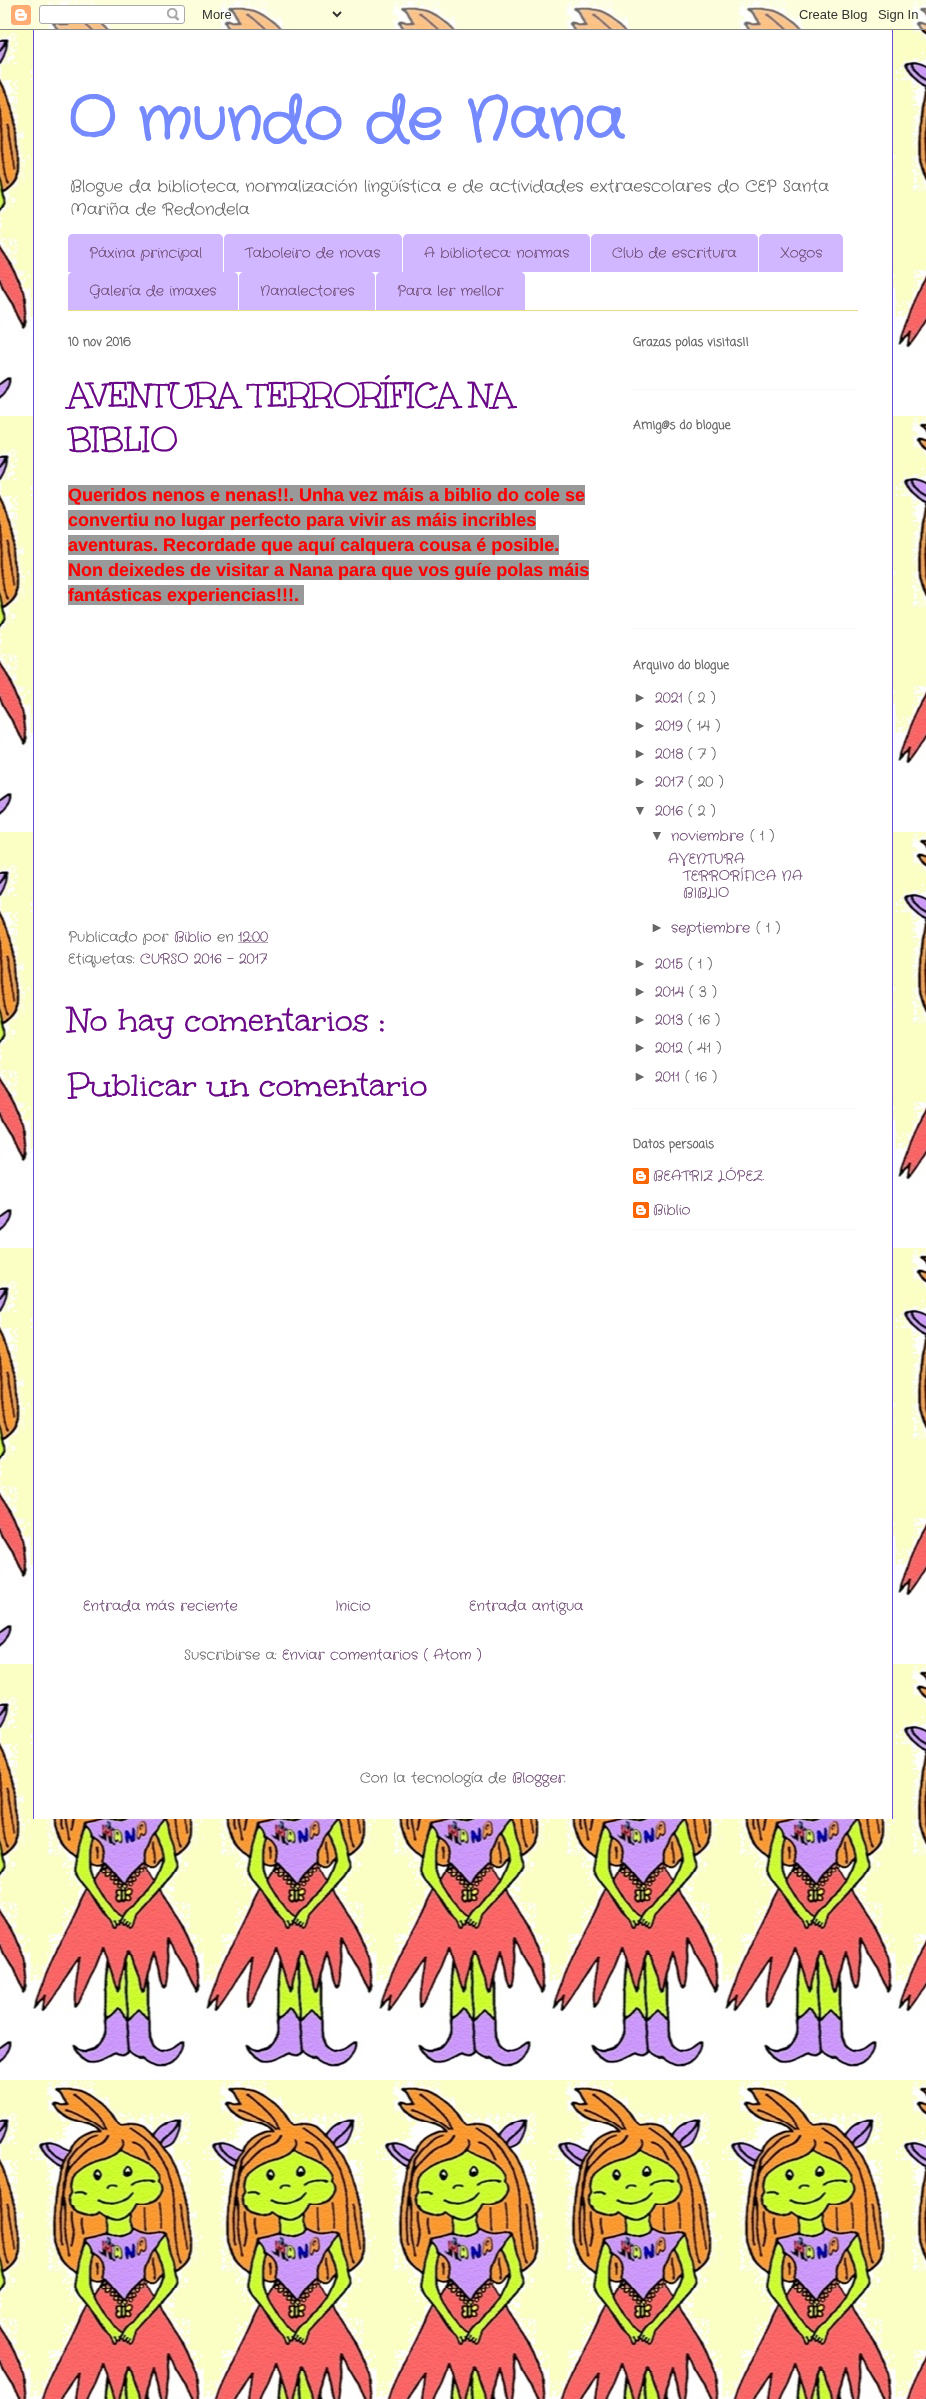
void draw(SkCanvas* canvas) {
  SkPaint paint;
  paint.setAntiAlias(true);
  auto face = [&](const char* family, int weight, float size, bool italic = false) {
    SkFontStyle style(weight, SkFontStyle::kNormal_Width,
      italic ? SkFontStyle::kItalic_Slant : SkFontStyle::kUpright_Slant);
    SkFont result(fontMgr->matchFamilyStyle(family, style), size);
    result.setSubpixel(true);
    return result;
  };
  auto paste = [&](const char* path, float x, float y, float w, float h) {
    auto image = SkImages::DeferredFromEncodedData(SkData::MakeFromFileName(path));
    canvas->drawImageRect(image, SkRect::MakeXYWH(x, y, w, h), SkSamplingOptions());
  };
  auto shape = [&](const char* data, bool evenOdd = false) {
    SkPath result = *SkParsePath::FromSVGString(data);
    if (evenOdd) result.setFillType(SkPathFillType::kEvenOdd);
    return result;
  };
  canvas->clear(0xffffffff);
  paste("img/1.png", 0, 0, 926, 2399);
  paste("img/2.png", 0, 0, 926, 30);
  {
    const struct { float x, y, w, h; SkColor color; } items[] = {
      {34, 30, 858, 1789, 0xffffffff},
      {892, 30, 1, 1789, 0xff694cd8},
      {33, 30, 1, 1789, 0xff694cd8},
      {68, 310, 790, 1, 0xffeddc83},
    };
    for (auto [x, y, w, h, color] : items) {
      paint.setColor(color);
      canvas->drawRect(SkRect::MakeXYWH(x, y, w, h), paint);
    }
  }
  paint.setColor(0xffd1b7ff);
  canvas->drawPath(shape("M73 234H218C221 234 223 236 223 239V272H68V239C68 236 70 234 73 234Z"), paint);
  canvas->drawPath(shape("M229 234H397C400 234 402 236 402 239V272H224V239C224 236 226 234 229 234Z"), paint);
  canvas->drawPath(shape("M408 234H585C588 234 590 236 590 239V272H403V239C403 236 405 234 408 234Z"), paint);
  canvas->drawPath(shape("M596 234H753C756 234 758 236 758 239V272H591V239C591 236 593 234 596 234Z"), paint);
  canvas->drawPath(shape("M764 234H838C841 234 843 236 843 239V272H759V239C759 236 761 234 764 234Z"), paint);
  canvas->drawPath(shape("M73 272H233C236 272 238 274 238 277V310H68V277C68 274 70 272 73 272Z"), paint);
  canvas->drawPath(shape("M244 272H370C373 272 375 274 375 277V310H239V277C239 274 241 272 244 272Z"), paint);
  canvas->drawPath(shape("M381 272H520C523 272 525 274 525 277V310H376V277C376 274 378 272 381 272Z"), paint);
  {
    const struct { float x, y, w, h; SkColor color; } items[] = {
      {68, 485, 517, 20, 0xff999999},
      {68, 510, 468, 20, 0xff999999},
      {68, 535, 491, 20, 0xff999999},
      {68, 560, 521, 20, 0xff999999},
      {68, 585, 236, 20, 0xff999999},
    };
    for (auto [x, y, w, h, color] : items) {
      paint.setColor(color);
      canvas->drawRect(SkRect::MakeXYWH(x, y, w, h), paint);
    }
  }
  paint.setStroke(true);
  paint.setStrokeWidth(1);
  paint.setColor(0xff6e4973);
  paint.setPathEffect(SkDashPathEffect::Make({{1, 1}}, 0));
  canvas->drawPath(shape("M238.5 942.5H268.5"), paint);
  paint.setPathEffect(nullptr);
  paint.setStroke(false);
  {
    const struct { float x, y, w, h; SkColor color; } items[] = {
      {633, 389, 225, 1, 0xfff9f9f9},
      {633, 628, 225, 1, 0xfff9f9f9},
      {633, 1108, 225, 1, 0xfff9f9f9},
      {633, 1229, 225, 1, 0xfff9f9f9},
    };
    for (auto [x, y, w, h, color] : items) {
      paint.setColor(color);
      canvas->drawRect(SkRect::MakeXYWH(x, y, w, h), paint);
    }
  }
  paste("img/3.png", 633, 1168, 16, 16);
  paste("img/3.png", 633, 1202, 16, 16);
  auto f0 = face("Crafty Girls", 700, 60);
  paint.setColor(0xff758aff);
  canvas->drawString("O mundo de Nana", 68, 138, f0, paint);
  auto f1 = face("Crafty Girls", 400, 16.1f);
  paint.setColor(0xff666666);
  canvas->drawString("Blogue da biblioteca, normalización lingüística e de actividades extraescolares do CEP Santa", 70, 191, f1, paint);
  canvas->drawString("Mariña de Redondela", 70, 214, f1, paint);
  auto f2 = face("Crafty Girls", 400, 14);
  paint.setColor(0xff6e4973);
  {
    const struct { const char* s; float x, y; } items[] = {
      {"Páxina principal", 89, 257},
      {"Taboleiro de novas", 245, 257},
      {"A biblioteca: normas", 424, 257},
      {"Club de escritura", 612, 257},
      {"Xogos", 780, 257},
      {"Galería de imaxes", 89, 295},
      {"Nanalectores", 260, 295},
      {"Para ler mellor", 397, 295},
    };
    for (auto [s, x, y] : items) {
      canvas->drawString(s, x, y, f2, paint);
    }
  }
  auto f3 = face("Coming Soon", 700, 12);
  paint.setColor(0xff666666);
  canvas->drawString("10 nov 2016", 68, 346, f3, paint);
  auto f4 = face("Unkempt", 400, 36);
  paint.setColor(0xff6a0888);
  canvas->drawString("AVENTURA TERRORÍFICA NA", 68, 408, f4, paint);
  canvas->drawString("BIBLIO", 68, 452, f4, paint);
  auto f5 = face("Liberation Sans", 700, 18);
  paint.setColor(0xffff0000);
  {
    const struct { const char* s; float x, y; } items[] = {
      {"Queridos nenos e nenas!!. Unha vez máis a biblio do cole se", 68, 501},
      {"convertiu no lugar perfecto para vivir as máis incribles", 68, 526},
      {"aventuras. Recordade que aquí calquera cousa é posible.", 68, 551},
      {"Non deixedes de visitar a Nana para que vos guíe polas máis", 68, 576},
      {"fantásticas experiencias!!!.", 68, 601},
    };
    for (auto [s, x, y] : items) {
      canvas->drawString(s, x, y, f5, paint);
    }
  }
  paint.setColor(0xff666666);
  canvas->drawString("Publicado por", 68, 941, f2, paint);
  paint.setColor(0xff6e4973);
  canvas->drawString("Biblio", 174, 941, f2, paint);
  paint.setColor(0xff666666);
  canvas->drawString("en", 217, 941, f2, paint);
  paint.setColor(0xff6e4973);
  canvas->drawString("12:00", 238, 941, f2, paint);
  paint.setColor(0xff666666);
  canvas->drawString("Etiquetas:", 68, 963, f2, paint);
  paint.setColor(0xff6e4973);
  canvas->drawString("CURSO 2016 - 2017", 140, 963, f2, paint);
  paint.setColor(0xff6a0888);
  canvas->drawString("No hay comentarios :", 68, 1033, f4, paint);
  canvas->drawString("Publicar un comentario", 68, 1098, f4, paint);
  paint.setColor(0xff6e4973);
  {
    const struct { const char* s; float x, y; } items[] = {
      {"Entrada más reciente", 83, 1610},
      {"Inicio", 335, 1610},
      {"Entrada antigua", 469, 1610},
    };
    for (auto [s, x, y] : items) {
      canvas->drawString(s, x, y, f2, paint);
    }
  }
  paint.setColor(0xff666666);
  canvas->drawString("Suscribirse a:", 184, 1659, f2, paint);
  paint.setColor(0xff6e4973);
  canvas->drawString("Enviar comentarios ( Atom )", 282, 1659, f2, paint);
  paint.setColor(0xff666666);
  {
    const struct { const char* s; float x, y; } items[] = {
      {"Grazas polas visitas!!", 633, 346},
      {"Amig@s do blogue", 633, 429},
      {"Arquivo do blogue", 633, 669},
    };
    for (auto [s, x, y] : items) {
      canvas->drawString(s, x, y, f3, paint);
    }
  }
  auto f6 = face("Liberation Sans", 400, 14);
  canvas->drawString("►", 633, 702, f6, paint);
  paint.setColor(0xff6e4973);
  canvas->drawString("2021", 655, 702, f2, paint);
  paint.setColor(0xff666666);
  canvas->drawString("( 2 )", 688, 702, f2, paint);
  canvas->drawString("►", 633, 730, f6, paint);
  paint.setColor(0xff6e4973);
  canvas->drawString("2019", 655, 730, f2, paint);
  paint.setColor(0xff666666);
  canvas->drawString("( 14 )", 687, 730, f2, paint);
  canvas->drawString("►", 633, 758, f6, paint);
  paint.setColor(0xff6e4973);
  canvas->drawString("2018", 655, 758, f2, paint);
  paint.setColor(0xff666666);
  canvas->drawString("( 7 )", 688, 758, f2, paint);
  canvas->drawString("►", 633, 786, f6, paint);
  paint.setColor(0xff6e4973);
  canvas->drawString("2017", 655, 786, f2, paint);
  paint.setColor(0xff666666);
  canvas->drawString("( 20 )", 688, 786, f2, paint);
  canvas->drawString("▼", 633, 815, f6, paint);
  paint.setColor(0xff6e4973);
  canvas->drawString("2016", 655, 815, f2, paint);
  paint.setColor(0xff666666);
  canvas->drawString("( 2 )", 688, 815, f2, paint);
  canvas->drawString("▼", 650, 840, f6, paint);
  paint.setColor(0xff6e4973);
  canvas->drawString("noviembre", 671, 840, f2, paint);
  paint.setColor(0xff666666);
  canvas->drawString("( 1 )", 750, 840, f2, paint);
  paint.setColor(0xff6e4973);
  {
    const struct { const char* s; float x, y; } items[] = {
      {"AVENTURA", 668, 863},
      {"TERRORÍFICA NA", 683, 880},
      {"BIBLIO", 683, 897},
    };
    for (auto [s, x, y] : items) {
      canvas->drawString(s, x, y, f2, paint);
    }
  }
  paint.setColor(0xff666666);
  canvas->drawString("►", 650, 932, f6, paint);
  paint.setColor(0xff6e4973);
  canvas->drawString("septiembre", 671, 932, f2, paint);
  paint.setColor(0xff666666);
  canvas->drawString("( 1 )", 756, 932, f2, paint);
  canvas->drawString("►", 633, 968, f6, paint);
  paint.setColor(0xff6e4973);
  canvas->drawString("2015", 655, 968, f2, paint);
  paint.setColor(0xff666666);
  canvas->drawString("( 1 )", 688, 968, f2, paint);
  canvas->drawString("►", 633, 996, f6, paint);
  paint.setColor(0xff6e4973);
  canvas->drawString("2014", 655, 996, f2, paint);
  paint.setColor(0xff666666);
  canvas->drawString("( 3 )", 689, 996, f2, paint);
  canvas->drawString("►", 633, 1024, f6, paint);
  paint.setColor(0xff6e4973);
  canvas->drawString("2013", 655, 1024, f2, paint);
  paint.setColor(0xff666666);
  canvas->drawString("( 16 )", 688, 1024, f2, paint);
  canvas->drawString("►", 633, 1052, f6, paint);
  paint.setColor(0xff6e4973);
  canvas->drawString("2012", 655, 1052, f2, paint);
  paint.setColor(0xff666666);
  canvas->drawString("( 41 )", 688, 1052, f2, paint);
  canvas->drawString("►", 633, 1081, f6, paint);
  paint.setColor(0xff6e4973);
  canvas->drawString("2011", 655, 1081, f2, paint);
  paint.setColor(0xff666666);
  canvas->drawString("( 16 )", 685, 1081, f2, paint);
  canvas->drawString("Datos persoais", 633, 1148, f3, paint);
  paint.setColor(0xff6e4973);
  canvas->drawString("BEATRIZ LÓPEZ.", 653, 1180, f2, paint);
  canvas->drawString("Biblio", 653, 1214, f2, paint);
  paint.setColor(0xff666666);
  canvas->drawString("Con la tecnología de", 360, 1782, f2, paint);
  paint.setColor(0xff6e4973);
  canvas->drawString("Blogger", 512, 1782, f2, paint);
  paint.setColor(0xff666666);
  canvas->drawString(".", 564, 1782, f2, paint);
}
